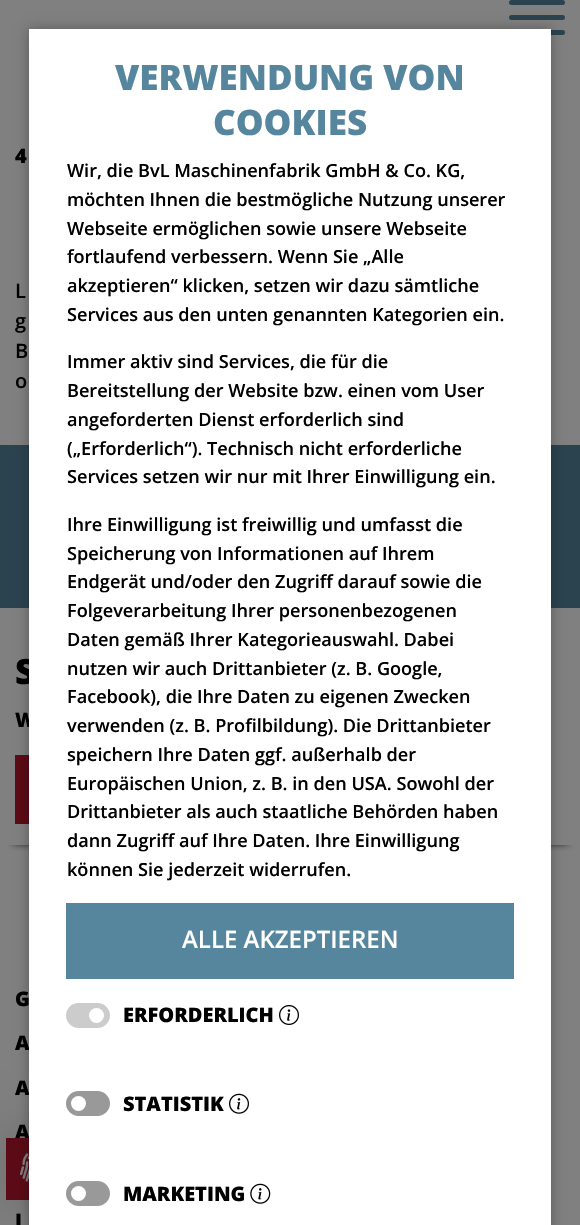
void draw(SkCanvas* canvas) {
  SkPaint paint;
  paint.setAntiAlias(true);
  auto face = [&](const char* family, int weight, float size, bool italic = false) {
    SkFontStyle style(weight, SkFontStyle::kNormal_Width,
      italic ? SkFontStyle::kItalic_Slant : SkFontStyle::kUpright_Slant);
    SkFont result(fontMgr->matchFamilyStyle(family, style), size);
    result.setSubpixel(true);
    return result;
  };
  auto paste = [&](const char* path, float x, float y, float w, float h) {
    auto image = SkImages::DeferredFromEncodedData(SkData::MakeFromFileName(path));
    canvas->drawImageRect(image, SkRect::MakeXYWH(x, y, w, h), SkSamplingOptions());
  };
  auto shape = [&](const char* data, bool evenOdd = false) {
    SkPath result = *SkParsePath::FromSVGString(data);
    if (evenOdd) result.setFillType(SkPathFillType::kEvenOdd);
    return result;
  };
  canvas->clear(0xff808080);
  paint.setColor(0xff2b434f);
  canvas->drawRoundRect(SkRect::MakeXYWH(509, 0, 56, 5), 2.5f, 2.5f, paint);
  canvas->drawRoundRect(SkRect::MakeXYWH(509, 15, 56, 5), 2.5f, 2.5f, paint);
  canvas->drawRoundRect(SkRect::MakeXYWH(509, 30, 56, 5), 2.5f, 2.5f, paint);
  paint.setColor(0x33000000);
  paint.setMaskFilter(SkMaskFilter::MakeBlur(kNormal_SkBlurStyle, 30));
  canvas->drawRect(SkRect::MakeXYWH(6, 1138, 63, 62), paint);
  paint.setMaskFilter(nullptr);
  paint.setColor(0xff2b434f);
  canvas->drawRect(SkRect::MakeXYWH(0, 445, 580, 163), paint);
  canvas->save();
  canvas->clipRect(SkRect::MakeXYWH(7, 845, 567, 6));
  paint.setColor(0xff000000);
  paint.setMaskFilter(SkMaskFilter::MakeBlur(kNormal_SkBlurStyle, 4));
  canvas->drawRect(SkRect::MakeXYWH(13, 670, 555, 173), paint);
  paint.setMaskFilter(nullptr);
  canvas->restore();
  paint.setColor(0xff5b0b15);
  canvas->drawPath(shape("M15 755V824H354L438 755Z"), paint);
  auto f0 = face("Open Sans", 800, 20);
  paint.setColor(0xff000000);
  canvas->drawString("4", 15, 163, f0, paint);
  auto f1 = face("Open Sans", 600, 20);
  {
    const struct { const char* s; float x, y; } items[] = {
      {"L", 15, 298},
      {"g", 15, 328},
      {"B", 15, 358},
      {"o", 15, 388},
    };
    for (auto [s, x, y] : items) {
      canvas->drawString(s, x, y, f1, paint);
    }
  }
  auto f2 = face("Open Sans", 800, 35);
  canvas->drawString("S", 15, 684, f2, paint);
  {
    const struct { const char* s; float x, y; } items[] = {
      {"W", 15, 727},
      {"G", 15, 1006},
      {"A", 15, 1050},
      {"A", 15, 1095},
      {"A", 15, 1139},
    };
    for (auto [s, x, y] : items) {
      canvas->drawString(s, x, y, f0, paint);
    }
  }
  paint.setColor(0xff5b0b15);
  canvas->drawRect(SkRect::MakeXYWH(6, 1138, 23, 62), paint);
  paste("img/1.png", 20, 1153, 9, 30);
  paint.setColor(0x4d000000);
  paint.setMaskFilter(SkMaskFilter::MakeBlur(kNormal_SkBlurStyle, 6));
  canvas->drawRect(SkRect::MakeXYWH(29, 29, 522, 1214), paint);
  paint.setMaskFilter(nullptr);
  paint.setColor(0xffffffff);
  canvas->drawRect(SkRect::MakeXYWH(29, 29, 522, 1196), paint);
  paint.setColor(0xff999999);
  canvas->drawRoundRect(SkRect::MakeXYWH(68.5f, 1183.5f, 39, 20), 10, 10, paint);
  paint.setStroke(true);
  paint.setStrokeWidth(5);
  canvas->drawRoundRect(SkRect::MakeXYWH(68.5f, 1183.5f, 39, 20), 10, 10, paint);
  paint.setStroke(false);
  paint.setColor(0xffffffff);
  canvas->drawCircle(78.5f, 1193.5f, 7.5f, paint);
  paint.setColor(0xff999999);
  canvas->drawRoundRect(SkRect::MakeXYWH(68.5f, 1093.5f, 39, 20), 10, 10, paint);
  paint.setStroke(true);
  canvas->drawRoundRect(SkRect::MakeXYWH(68.5f, 1093.5f, 39, 20), 10, 10, paint);
  paint.setStroke(false);
  paint.setColor(0xffffffff);
  canvas->drawCircle(78.5f, 1103.5f, 7.5f, paint);
  paint.setColor(0xffcccccc);
  canvas->drawRoundRect(SkRect::MakeXYWH(68.5f, 1005.5f, 39, 20), 10, 10, paint);
  paint.setStroke(true);
  canvas->drawRoundRect(SkRect::MakeXYWH(68.5f, 1005.5f, 39, 20), 10, 10, paint);
  paint.setStroke(false);
  paint.setColor(0xffffffff);
  canvas->drawCircle(96.5f, 1015.5f, 7.5f, paint);
  paint.setColor(0xff55869d);
  canvas->drawString("COOKIES", 213, 135, f2, paint);
  canvas->drawString("VERWENDUNG VON", 115, 90, f2, paint);
  canvas->drawRect(SkRect::MakeXYWH(66, 903, 448, 76), paint);
  auto f3 = face("Open Sans", 600, 24);
  paint.setColor(0xffffffff);
  canvas->drawString("ALLE AKZEPTIEREN", 182, 948, f3, paint);
  auto f4 = face("Open Sans", 600, 18.1f);
  paint.setColor(0xff000000);
  {
    const struct { const char* s; float x, y; } items[] = {
      {"können Sie jederzeit widerrufen.", 67, 876},
      {"dann Zugriff auf Ihre Daten. Ihre Einwilligung", 67, 847},
      {"Drittanbieter als auch staatliche Behörden haben", 67, 818},
      {"Europäischen Union, z. B. in den USA. Sowohl der", 67, 790},
      {"speichern Ihre Daten ggf. außerhalb der", 67, 761},
      {"verwenden (z. B. Profilbildung). Die Drittanbieter", 67, 732},
      {"Facebook), die Ihre Daten zu eigenen Zwecken", 67, 703},
      {"nutzen wir auch Drittanbieter (z. B. Google,", 67, 675},
      {"Daten gemäß Ihrer Kategorieauswahl. Dabei", 67, 646},
      {"Folgeverarbeitung Ihrer personenbezogenen", 67, 617},
      {"Endgerät und/oder den Zugriff darauf sowie die", 67, 588},
      {"Speicherung von Informationen auf Ihrem", 67, 560},
      {"Ihre Einwilligung ist freiwillig und umfasst die", 67, 531},
      {"Services setzen wir nur mit Ihrer Einwilligung ein.", 67, 483},
      {"(„Erforderlich“). Technisch nicht erforderliche", 67, 455},
      {"angeforderten Dienst erforderlich sind", 67, 426},
      {"Bereitstellung der Website bzw. einen vom User", 67, 397},
      {"Immer aktiv sind Services, die für die", 67, 368},
      {"Services aus den unten genannten Kategorien ein.", 67, 321},
      {"akzeptieren“ klicken, setzen wir dazu sämtliche", 67, 292},
      {"fortlaufend verbessern. Wenn Sie „Alle", 67, 263},
      {"Webseite ermöglichen sowie unsere Webseite", 67, 235},
      {"möchten Ihnen die bestmögliche Nutzung unserer", 67, 206},
      {"Wir, die BvL Maschinenfabrik GmbH & Co. KG,", 67, 177},
    };
    for (auto [s, x, y] : items) {
      canvas->drawString(s, x, y, f4, paint);
    }
  }
  paste("img/4.png", 250, 1183, 21, 21);
  canvas->drawString("MARKETING", 123, 1201, f0, paint);
  paste("img/3.png", 229, 1093, 20, 21);
  canvas->drawString("STATISTIK", 123, 1111, f0, paint);
  paste("img/2.png", 279, 1005, 20, 20);
  canvas->drawString("ERFORDERLICH", 123, 1022, f0, paint);
  canvas->drawString("I", 15, 1228, f0, paint);
}
